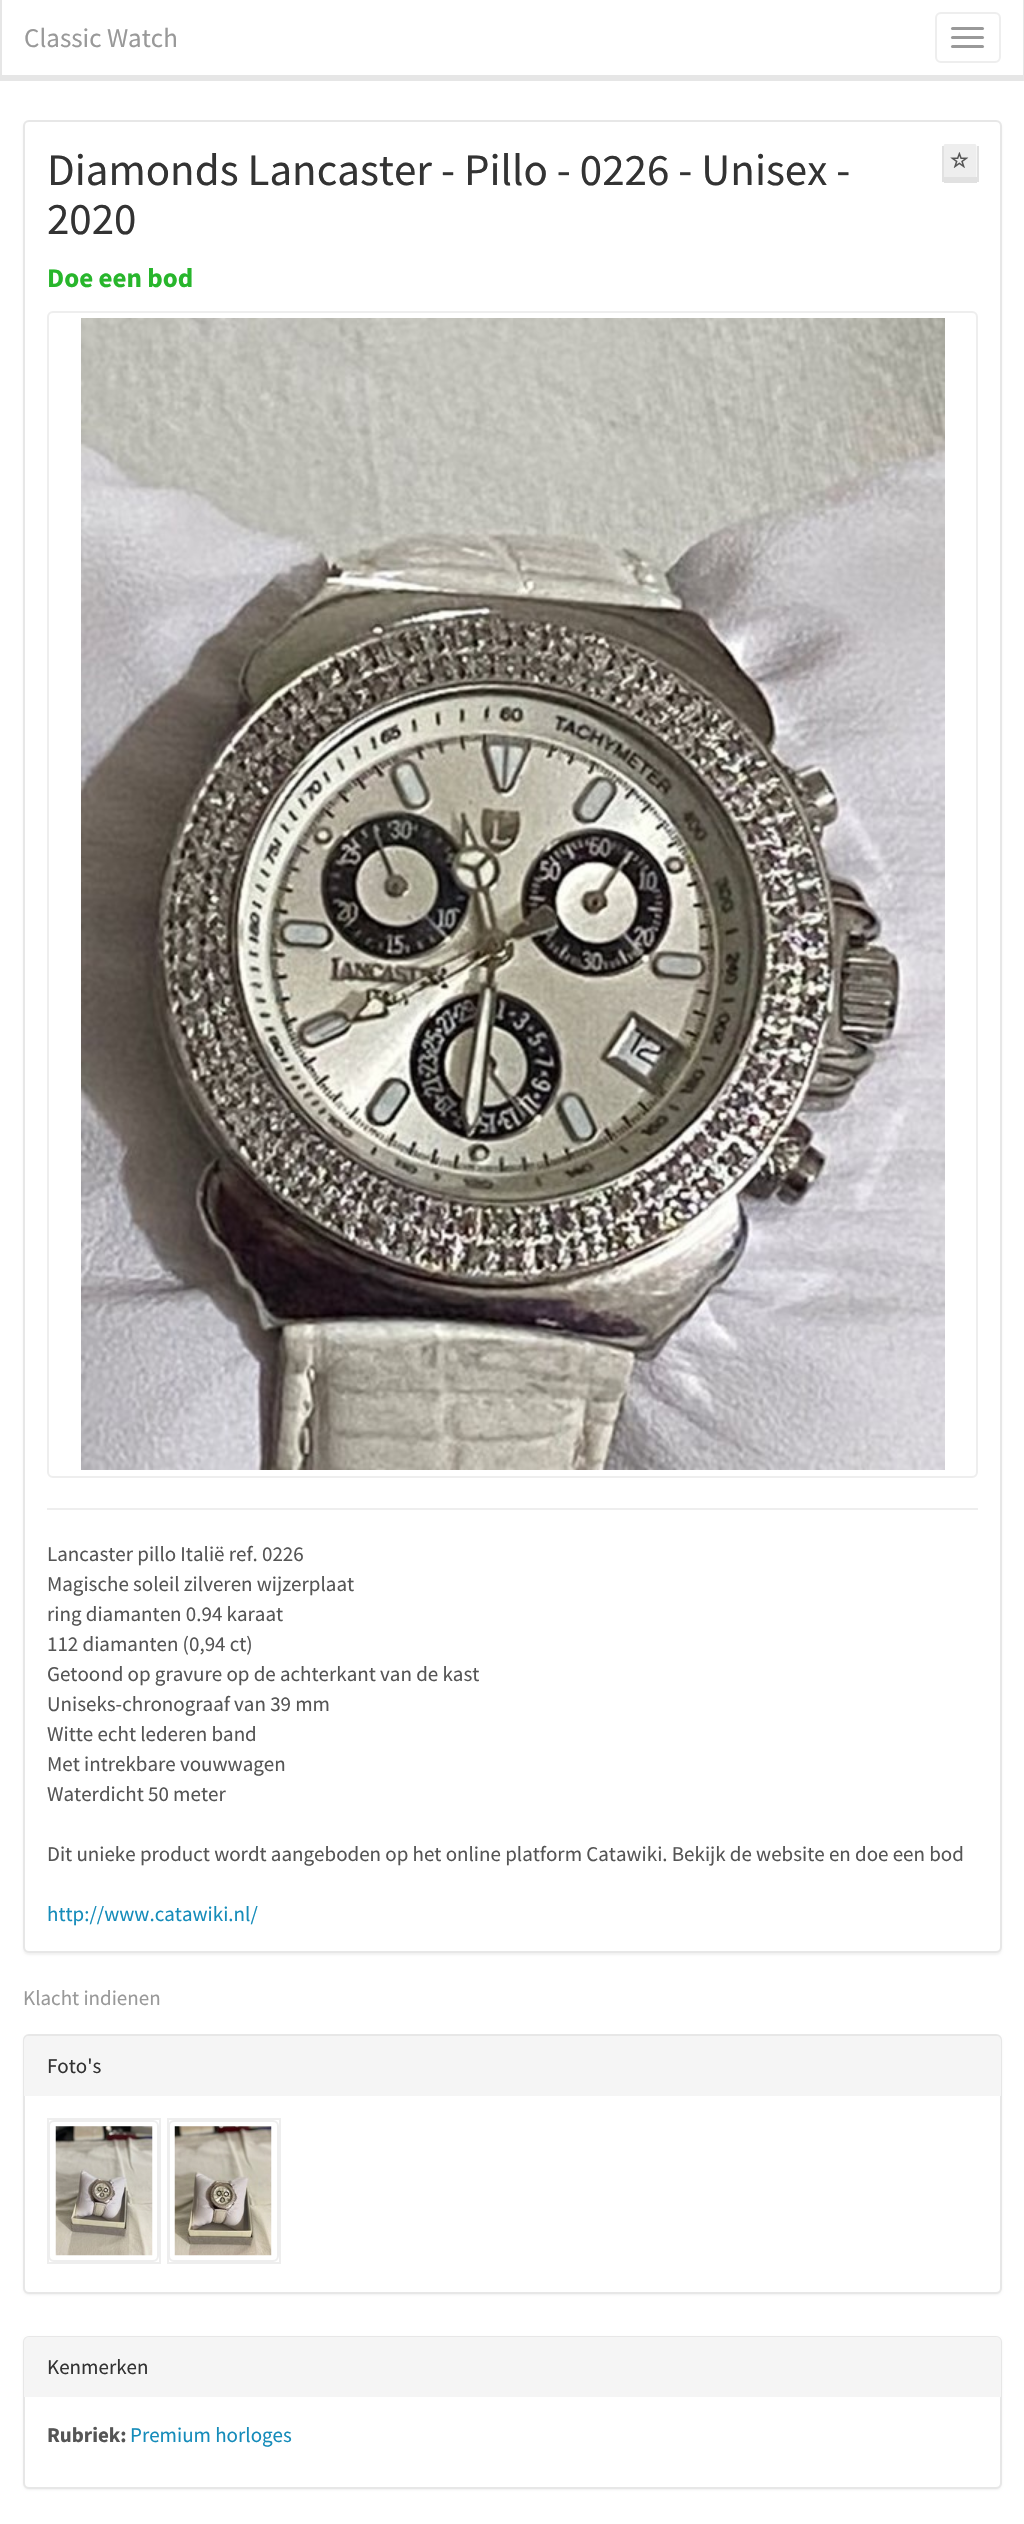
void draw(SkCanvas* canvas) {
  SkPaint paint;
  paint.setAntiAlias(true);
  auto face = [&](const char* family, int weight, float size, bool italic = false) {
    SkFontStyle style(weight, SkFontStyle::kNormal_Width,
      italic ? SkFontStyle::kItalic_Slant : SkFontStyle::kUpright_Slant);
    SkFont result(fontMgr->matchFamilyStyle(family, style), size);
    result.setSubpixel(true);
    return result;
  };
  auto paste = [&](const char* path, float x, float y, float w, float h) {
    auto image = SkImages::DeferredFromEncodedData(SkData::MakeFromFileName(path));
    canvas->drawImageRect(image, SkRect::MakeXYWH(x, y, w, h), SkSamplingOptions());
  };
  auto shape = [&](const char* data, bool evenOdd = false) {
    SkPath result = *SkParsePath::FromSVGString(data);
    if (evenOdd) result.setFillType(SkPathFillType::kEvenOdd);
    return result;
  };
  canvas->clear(0xffffffff);
  {
    const struct { float x, y, w, h; SkColor color; } items[] = {
      {1023, 0, 1, 81, 0xffe6e6e6},
      {0, 75, 1024, 6, 0xffe6e6e6},
      {0, 0, 2, 81, 0xffe6e6e6},
    };
    for (auto [x, y, w, h, color] : items) {
      paint.setColor(color);
      canvas->drawRect(SkRect::MakeXYWH(x, y, w, h), paint);
    }
  }
  paint.setStroke(true);
  paint.setStrokeWidth(2);
  paint.setColor(0xffeeeeee);
  canvas->drawRoundRect(SkRect::MakeXYWH(936, 13, 64, 49), 5, 5, paint);
  paint.setStroke(false);
  paint.setColor(0xff999999);
  canvas->drawRoundRect(SkRect::MakeXYWH(951, 27, 33, 3), 1.5f, 1.5f, paint);
  canvas->drawRoundRect(SkRect::MakeXYWH(951, 36, 33, 3), 1.5f, 1.5f, paint);
  canvas->drawRoundRect(SkRect::MakeXYWH(951, 45, 33, 3), 1.5f, 1.5f, paint);
  paint.setColor(0x0d000000);
  paint.setMaskFilter(SkMaskFilter::MakeBlur(kNormal_SkBlurStyle, 1));
  canvas->drawRoundRect(SkRect::MakeXYWH(23, 122, 979, 1833), 6, 6, paint);
  paint.setMaskFilter(nullptr);
  paint.setColor(0xffffffff);
  canvas->drawRoundRect(SkRect::MakeXYWH(24, 121, 977, 1831), 5, 5, paint);
  paint.setStroke(true);
  paint.setColor(0xffe7e7e7);
  canvas->drawRoundRect(SkRect::MakeXYWH(24, 121, 977, 1831), 5, 5, paint);
  paint.setStroke(false);
  paint.setColor(0xffeeeeee);
  canvas->drawPath(shape("M945 144H975C976 144 976.5 145.5 976.5 147V177H943.5V147C943.5 145.5 944 144 945 144Z"), paint);
  {
    const struct { float x, y, w, h; SkColor color; } items[] = {
      {977, 146, 2, 36, 0xffe1e1e1},
      {944, 177, 33, 6, 0xffe1e1e1},
      {942, 146, 2, 36, 0xffe1e1e1},
    };
    for (auto [x, y, w, h, color] : items) {
      paint.setColor(color);
      canvas->drawRect(SkRect::MakeXYWH(x, y, w, h), paint);
    }
  }
  paste("img/1.png", 950, 152, 19, 16);
  paint.setStroke(true);
  paint.setColor(0xffeeeeee);
  canvas->drawRoundRect(SkRect::MakeXYWH(48, 312, 929, 1165), 5, 5, paint);
  paste("img/2.png", 81, 318, 864, 1152);
  paint.setStroke(false);
  canvas->drawRect(SkRect::MakeXYWH(47, 1508, 931, 2), paint);
  paint.setColor(0x0d000000);
  paint.setMaskFilter(SkMaskFilter::MakeBlur(kNormal_SkBlurStyle, 1));
  canvas->drawRoundRect(SkRect::MakeXYWH(23, 2036, 979, 259), 6, 6, paint);
  paint.setMaskFilter(nullptr);
  paint.setColor(0xffffffff);
  canvas->drawRoundRect(SkRect::MakeXYWH(24, 2035, 977, 258), 5, 5, paint);
  paint.setStroke(true);
  paint.setColor(0xffe7e7e7);
  canvas->drawRoundRect(SkRect::MakeXYWH(24, 2035, 977, 258), 5, 5, paint);
  paint.setStroke(false);
  paint.setColor(0xfff5f5f5);
  canvas->drawPath(shape("M29 2036H996C999 2036 1001 2038 1001 2041V2096H24V2041C24 2038 26 2036 29 2036Z"), paint);
  paint.setStroke(true);
  paint.setColor(0xffeeeeee);
  canvas->drawRect(SkRect::MakeXYWH(48, 2119, 112, 144), paint);
  paint.setStroke(false);
  paint.setColor(0xffffffff);
  canvas->drawRoundRect(SkRect::MakeXYWH(49, 2121, 109, 140), 5, 5, paint);
  paint.setStroke(true);
  paint.setColor(0xffeeeeee);
  canvas->drawRoundRect(SkRect::MakeXYWH(49, 2121, 109, 140), 5, 5, paint);
  paste("img/3.png", 55, 2126, 98, 130);
  canvas->drawRect(SkRect::MakeXYWH(168, 2119, 112, 144), paint);
  paint.setStroke(false);
  paint.setColor(0xffffffff);
  canvas->drawRoundRect(SkRect::MakeXYWH(169, 2121, 109, 140), 5, 5, paint);
  paint.setStroke(true);
  paint.setColor(0xffeeeeee);
  canvas->drawRoundRect(SkRect::MakeXYWH(169, 2121, 109, 140), 5, 5, paint);
  paste("img/4.png", 174, 2126, 98, 130);
  paint.setStroke(false);
  paint.setColor(0x0d000000);
  paint.setMaskFilter(SkMaskFilter::MakeBlur(kNormal_SkBlurStyle, 1));
  canvas->drawRoundRect(SkRect::MakeXYWH(23, 2337, 979, 153), 6, 6, paint);
  paint.setMaskFilter(nullptr);
  paint.setColor(0xffffffff);
  canvas->drawRoundRect(SkRect::MakeXYWH(24, 2337, 977, 151), 5, 5, paint);
  paint.setStroke(true);
  paint.setColor(0xffe7e7e7);
  canvas->drawRoundRect(SkRect::MakeXYWH(24, 2337, 977, 151), 5, 5, paint);
  paint.setStroke(false);
  paint.setColor(0xfff5f5f5);
  canvas->drawPath(shape("M29 2337H996C999 2337 1001 2339 1001 2342V2397H24V2342C24 2339 26 2337 29 2337Z"), paint);
  auto f0 = face("Source Sans Pro", 400, 27);
  paint.setColor(0xff999999);
  canvas->drawString("Classic Watch", 24, 47, f0, paint);
  auto f1 = face("Source Sans Pro", 400, 45);
  paint.setColor(0xff333333);
  canvas->drawString("Diamonds Lancaster - Pillo - 0226 - Unisex -", 47, 185, f1, paint);
  canvas->drawString("2020", 47, 234, f1, paint);
  auto f2 = face("Source Sans Pro", 700, 27);
  paint.setColor(0xff28b62c);
  canvas->drawString("Doe een bod", 47, 287, f2, paint);
  auto f3 = face("Source Sans Pro", 400, 21);
  paint.setColor(0xff555555);
  {
    const struct { const char* s; float x, y; } items[] = {
      {"Lancaster pillo Italië ref. 0226", 47, 1561},
      {"Magische soleil zilveren wijzerplaat", 47, 1591},
      {"ring diamanten 0.94 karaat", 47, 1621},
      {"112 diamanten (0,94 ct)", 47, 1651},
      {"Getoond op gravure op de achterkant van de kast", 47, 1681},
      {"Uniseks-chronograaf van 39 mm", 47, 1711},
      {"Witte echt lederen band", 47, 1741},
      {"Met intrekbare vouwwagen", 47, 1771},
      {"Waterdicht 50 meter", 47, 1801},
      {"Dit unieke product wordt aangeboden op het online platform Catawiki. Bekijk de website en doe een bod", 47, 1861},
    };
    for (auto [s, x, y] : items) {
      canvas->drawString(s, x, y, f3, paint);
    }
  }
  paint.setColor(0xff158cba);
  canvas->drawString("http://www.catawiki.nl/", 47, 1921, f3, paint);
  paint.setColor(0xff999999);
  canvas->drawString("Klacht indienen", 23, 2005, f3, paint);
  paint.setColor(0xff333333);
  canvas->drawString("Foto's", 47, 2073, f3, paint);
  canvas->drawString("Kenmerken", 47, 2374, f3, paint);
  auto f4 = face("Source Sans Pro", 700, 21);
  paint.setColor(0xff555555);
  canvas->drawString("Rubriek:", 47, 2442, f4, paint);
  paint.setColor(0xff158cba);
  canvas->drawString("Premium horloges", 130, 2442, f3, paint);
}
